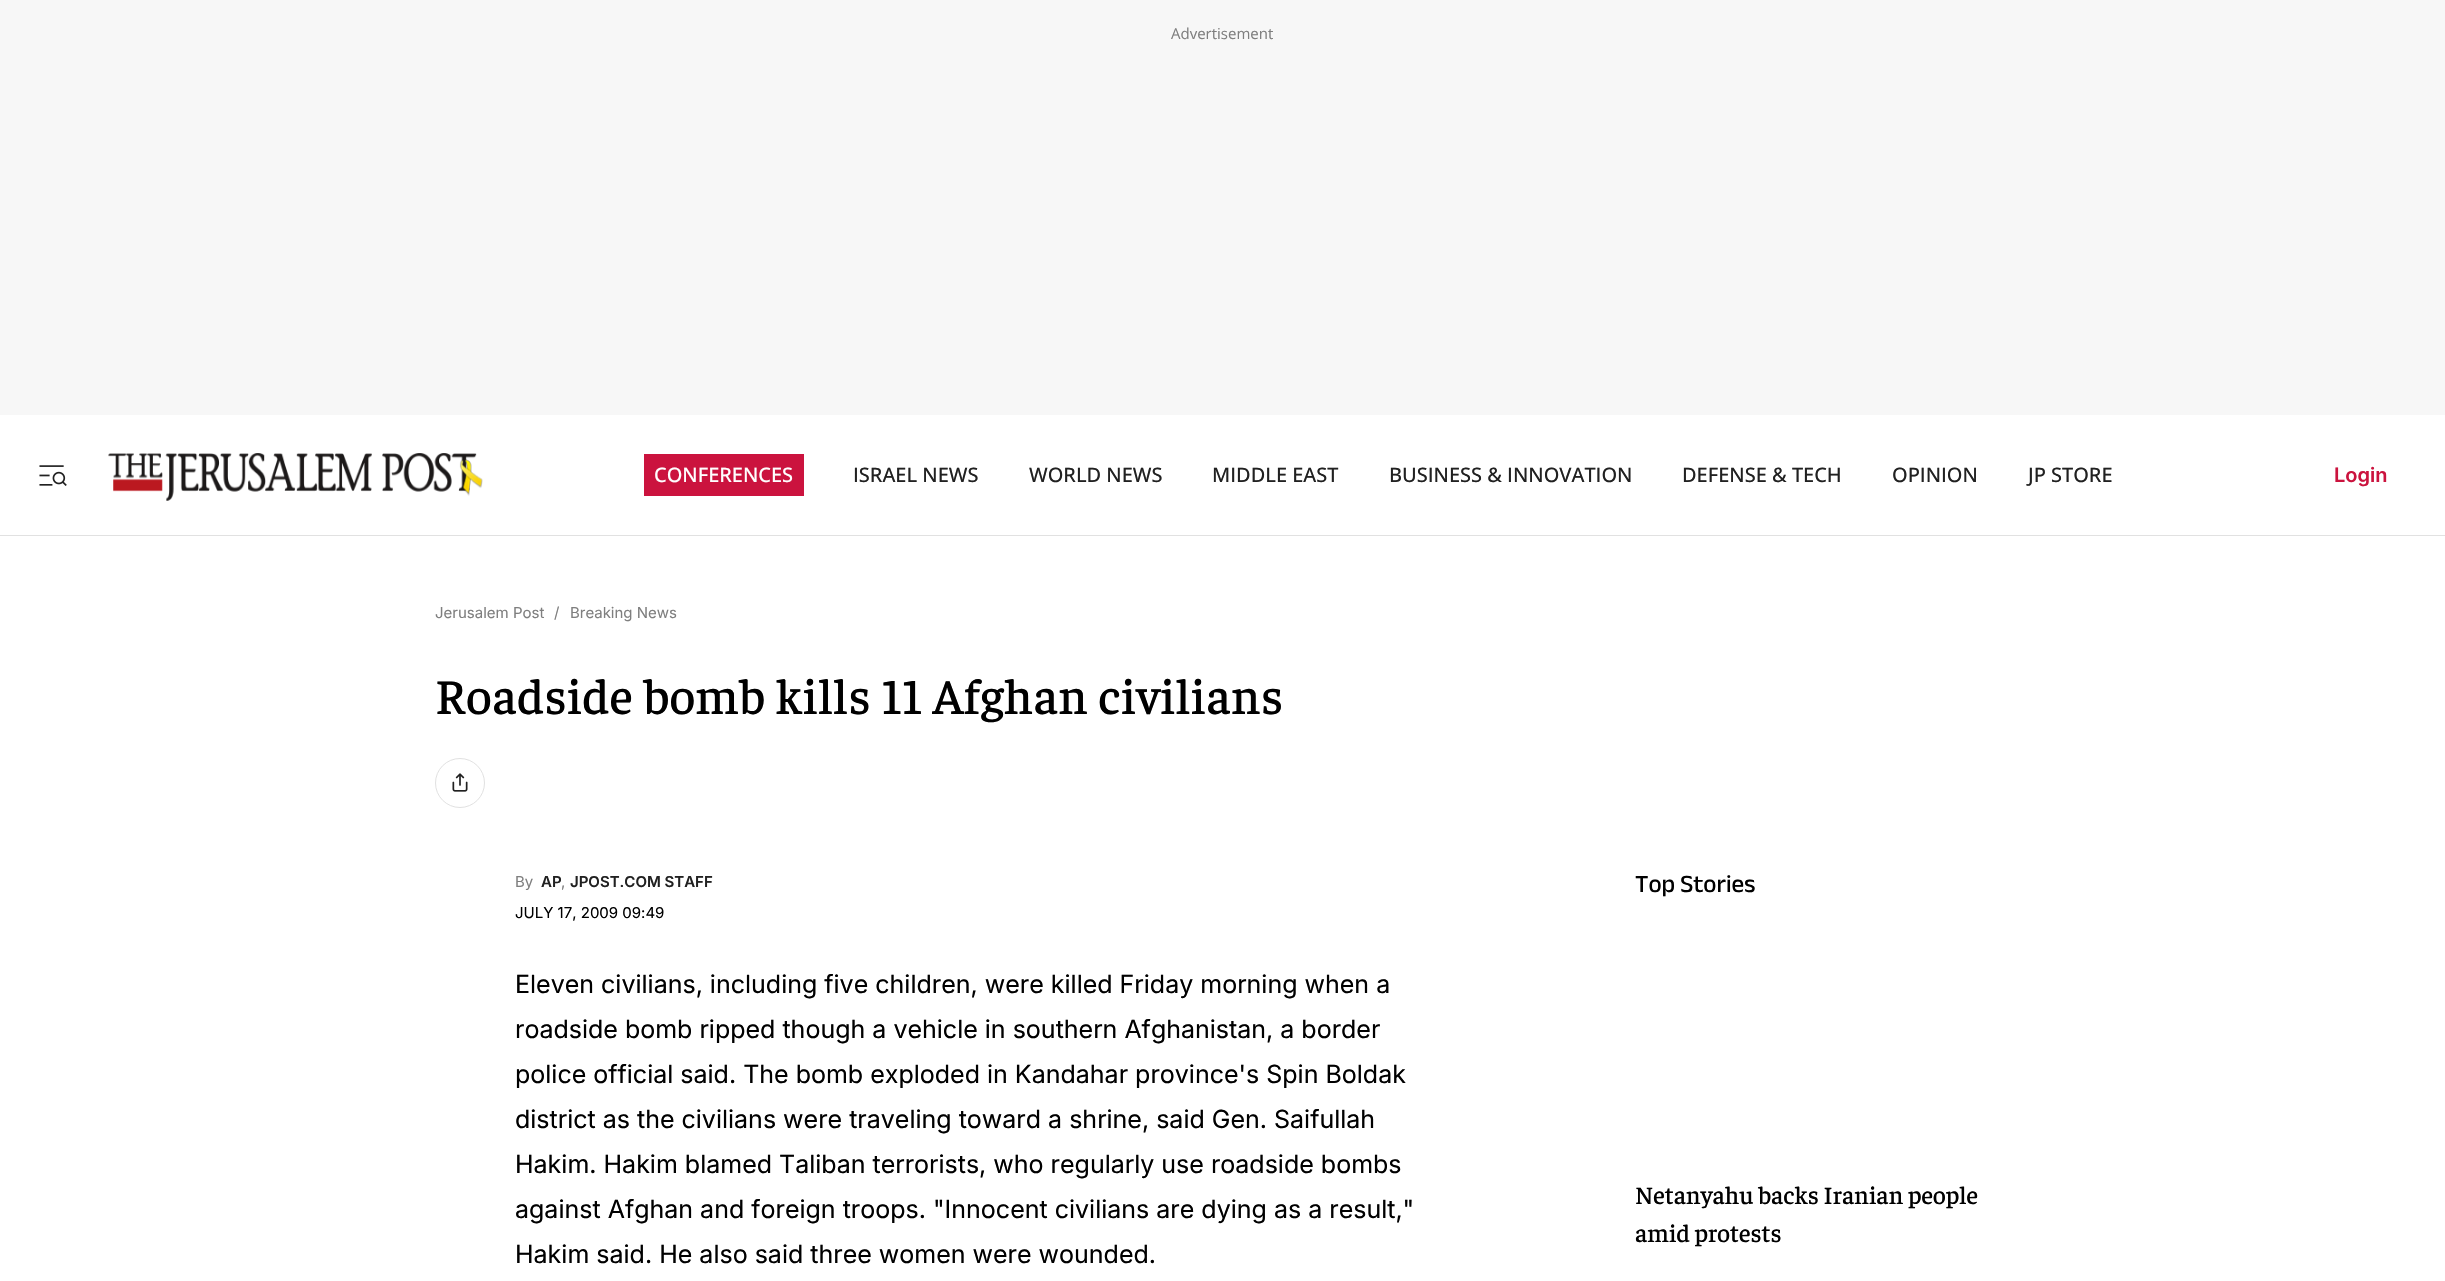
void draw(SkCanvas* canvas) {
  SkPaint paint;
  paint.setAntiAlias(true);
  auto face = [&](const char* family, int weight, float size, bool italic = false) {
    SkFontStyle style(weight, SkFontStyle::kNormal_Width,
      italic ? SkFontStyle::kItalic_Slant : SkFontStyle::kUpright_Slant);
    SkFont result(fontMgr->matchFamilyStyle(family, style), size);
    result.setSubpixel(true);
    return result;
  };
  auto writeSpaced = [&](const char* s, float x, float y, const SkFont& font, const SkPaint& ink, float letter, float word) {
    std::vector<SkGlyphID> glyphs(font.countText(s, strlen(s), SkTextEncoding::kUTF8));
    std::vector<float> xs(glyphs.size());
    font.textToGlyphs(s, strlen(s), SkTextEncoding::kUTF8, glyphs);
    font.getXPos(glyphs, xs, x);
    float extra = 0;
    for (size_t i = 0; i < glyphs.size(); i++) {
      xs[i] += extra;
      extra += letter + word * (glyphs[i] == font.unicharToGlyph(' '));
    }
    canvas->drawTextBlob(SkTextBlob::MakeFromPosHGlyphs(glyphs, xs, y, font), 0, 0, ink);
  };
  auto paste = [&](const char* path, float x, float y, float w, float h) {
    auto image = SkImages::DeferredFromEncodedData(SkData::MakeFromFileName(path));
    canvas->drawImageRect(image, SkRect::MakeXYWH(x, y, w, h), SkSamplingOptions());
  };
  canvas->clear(0xffffffff);
  paint.setColor(0xfff7f7f7);
  canvas->drawRect(SkRect::MakeXYWH(0, 0, 2445, 415), paint);
  paint.setColor(0xffe1e1e1);
  canvas->drawRect(SkRect::MakeXYWH(0, 535, 2445, 1), paint);
  paste("img/1.png", 39, 465, 28, 21);
  paste("img/2.png", 108, 453, 375, 48);
  paint.setColor(0xffcb133e);
  canvas->drawRect(SkRect::MakeXYWH(644, 454, 160, 42), paint);
  paint.setStroke(true);
  paint.setStrokeWidth(1);
  paint.setColor(0xffe1e1e1);
  canvas->drawCircle(460, 783, 24.5f, paint);
  paste("img/3.png", 452, 773, 16, 19);
  auto f0 = face("Open Sans", 400, 15);
  paint.setStroke(false);
  paint.setColor(0xff7f7f7f);
  canvas->drawString("Advertisement", 1171, 39, f0, paint);
  auto f1 = face("Open Sans", 500, 20);
  paint.setColor(0xffffffff);
  canvas->drawString("CONFERENCES", 654, 482, f1, paint);
  paint.setColor(0xff212121);
  {
    const struct { const char* s; float x, y; } items[] = {
      {"ISRAEL NEWS", 853, 482},
      {"WORLD NEWS", 1029, 482},
      {"MIDDLE EAST", 1212, 482},
      {"BUSINESS & INNOVATION", 1389, 482},
      {"DEFENSE & TECH", 1682, 482},
      {"OPINION", 1892, 482},
      {"JP STORE", 2028, 482},
    };
    for (auto [s, x, y] : items) {
      canvas->drawString(s, x, y, f1, paint);
    }
  }
  auto f2 = face("Inter", 600, 20);
  paint.setColor(0xffcb133e);
  canvas->drawString("Login", 2334, 482, f2, paint);
  auto f3 = face("Inter", 400, 15);
  paint.setColor(0xff7f7f7f);
  {
    const struct { const char* s; float x, y; } items[] = {
      {"Jerusalem Post", 435, 618},
      {"/", 554, 618},
      {"Breaking News", 570, 618},
    };
    for (auto [s, x, y] : items) {
      canvas->drawString(s, x, y, f3, paint);
    }
  }
  auto f4 = face("Faustina", 500, 50);
  paint.setColor(0xff000000);
  writeSpaced("Roadside bomb kills 11 Afghan civilians", 435, 714, f4, paint, 0.5f, 0);
  paint.setColor(0xff7f7f7f);
  canvas->drawString("By", 515, 887, f3, paint);
  auto f5 = face("Inter", 600, 15);
  paint.setColor(0xff212121);
  canvas->drawString("AP", 541, 887, f5, paint);
  canvas->drawString("JPOST.COM STAFF", 570, 887, f5, paint);
  paint.setColor(0xff7f7f7f);
  canvas->drawString(",", 561, 887, f3, paint);
  paint.setColor(0xff000000);
  canvas->drawString("JULY 17, 2009 09:49", 515, 918, f3, paint);
  auto f6 = face("Inter", 400, 25);
  {
    const struct { const char* s; float x, y; } items[] = {
      {"Eleven civilians, including five children, were killed Friday morning when a", 515, 993},
      {"roadside bomb ripped though a vehicle in southern Afghanistan, a border", 515, 1038},
      {"police official said. The bomb exploded in Kandahar province's Spin Boldak", 515, 1083},
      {"district as the civilians were traveling toward a shrine, said Gen. Saifullah", 515, 1128},
      {"Hakim. Hakim blamed Taliban terrorists, who regularly use roadside bombs", 515, 1173},
      {"against Afghan and foreign troops. \"Innocent civilians are dying as a result,\"", 515, 1218},
      {"Hakim said. He also said three women were wounded.", 515, 1263},
    };
    for (auto [s, x, y] : items) {
      canvas->drawString(s, x, y, f6, paint);
    }
  }
  auto f7 = face("Anek Latin", 500, 25);
  canvas->drawString("Top Stories", 1635, 892, f7, paint);
  auto f8 = face("Faustina", 500, 25);
  canvas->drawString("Netanyahu backs Iranian people", 1635, 1204, f8, paint);
  canvas->drawString("amid protests", 1635, 1242, f8, paint);
}
